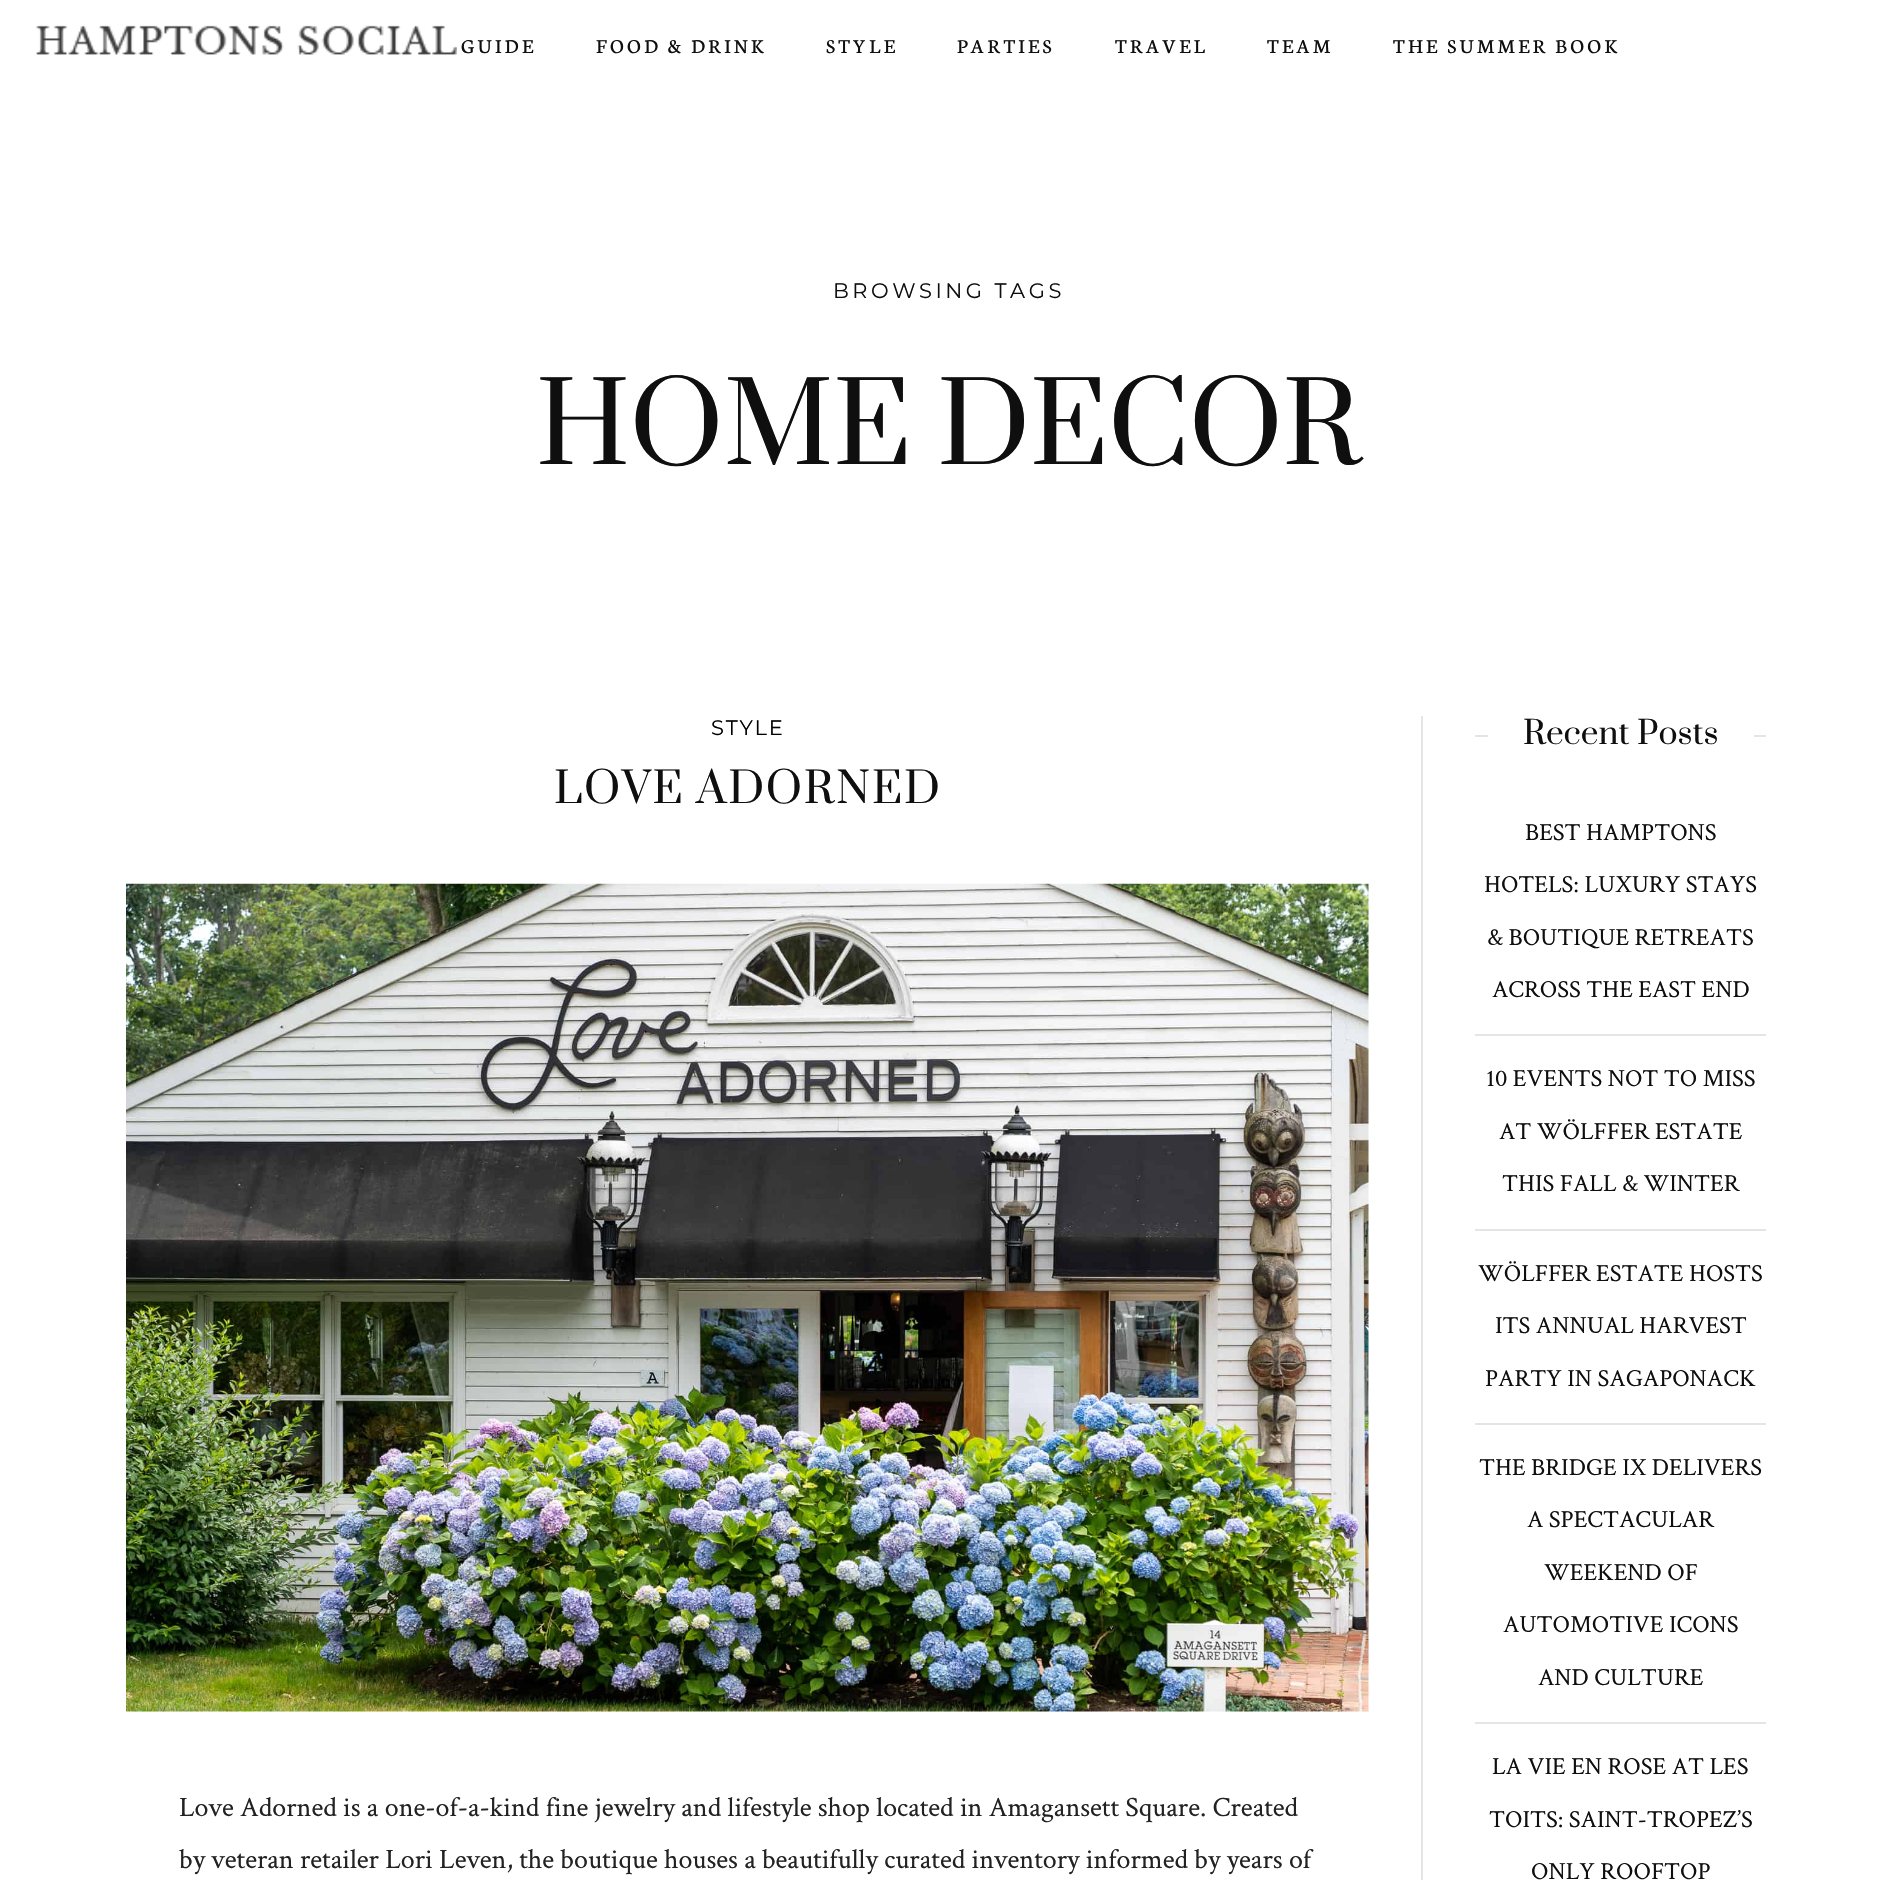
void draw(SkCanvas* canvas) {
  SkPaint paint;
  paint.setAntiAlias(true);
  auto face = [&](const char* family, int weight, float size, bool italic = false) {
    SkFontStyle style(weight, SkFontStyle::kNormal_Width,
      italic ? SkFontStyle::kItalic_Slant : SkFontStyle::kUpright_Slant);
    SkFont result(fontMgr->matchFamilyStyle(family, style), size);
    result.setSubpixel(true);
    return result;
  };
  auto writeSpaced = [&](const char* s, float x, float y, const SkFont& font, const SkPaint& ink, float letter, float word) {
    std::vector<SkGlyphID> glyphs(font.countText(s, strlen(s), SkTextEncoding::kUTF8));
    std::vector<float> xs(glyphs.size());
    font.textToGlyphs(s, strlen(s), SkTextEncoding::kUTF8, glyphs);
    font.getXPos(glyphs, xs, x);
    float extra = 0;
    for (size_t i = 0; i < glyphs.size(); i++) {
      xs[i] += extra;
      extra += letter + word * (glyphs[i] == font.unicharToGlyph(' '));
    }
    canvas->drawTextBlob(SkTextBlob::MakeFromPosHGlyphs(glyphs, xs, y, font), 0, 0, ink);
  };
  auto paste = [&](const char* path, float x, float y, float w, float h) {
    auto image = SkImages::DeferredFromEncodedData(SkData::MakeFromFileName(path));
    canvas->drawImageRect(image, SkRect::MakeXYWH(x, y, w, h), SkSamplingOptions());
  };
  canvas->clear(0xffffffff);
  paste("img/1.png", 36, 25, 421, 30);
  paste("img/2.png", 126, 883, 1243, 829);
  {
    const struct { float x, y, w, h; SkColor color; } items[] = {
      {1421, 716, 2, 1164, 0xffe5e5e5},
      {1475, 735, 291, 2, 0xffe5e5e5},
      {1488, 735, 266, 2, 0xffffffff},
      {1475, 1034, 291, 2, 0xffe5e5e5},
      {1475, 1229, 291, 2, 0xffe5e5e5},
      {1475, 1423, 291, 2, 0xffe5e5e5},
      {1475, 1722, 291, 2, 0xffe5e5e5},
    };
    for (auto [x, y, w, h, color] : items) {
      paint.setColor(color);
      canvas->drawRect(SkRect::MakeXYWH(x, y, w, h), paint);
    }
  }
  auto f0 = face("Neuton", 400, 21);
  paint.setColor(0xff0f0f0f);
  {
    const struct { const char* s; float x, y; } items[] = {
      {"GUIDE", 461, 53},
      {"FOOD & DRINK", 596, 53},
      {"STYLE", 826, 53},
      {"PARTIES", 957, 53},
      {"TRAVEL", 1115, 53},
      {"TEAM", 1267, 53},
      {"THE SUMMER BOOK", 1393, 53},
    };
    for (auto [s, x, y] : items) {
      writeSpaced(s, x, y, f0, paint, 3.5f, 0);
    }
  }
  auto f1 = face("Montserrat", 400, 21);
  writeSpaced("BROWSING TAGS", 833, 298, f1, paint, 3.5f, 0);
  auto f2 = face("Prata", 400, 108.5f);
  canvas->drawString("HOME DECOR", 536, 464, f2, paint);
  paint.setColor(0xff000000);
  writeSpaced("STYLE", 711, 735, f1, paint, 1.75f, 0);
  auto f3 = face("Prata", 400, 42);
  paint.setColor(0xff0f0f0f);
  writeSpaced("LOVE ADORNED", 554, 803, f3, paint, 1.75f, 0);
  auto f4 = face("Crimson Text", 400, 28);
  paint.setColor(0xff222222);
  canvas->drawString("Love Adorned is a one-of-a-kind fine jewelry and lifestyle shop located in Amagansett Square. Created", 179, 1816, f4, paint);
  canvas->drawString("by veteran retailer Lori Leven, the boutique houses a beautifully curated inventory informed by years of", 179, 1868, f4, paint);
  auto f5 = face("Prata", 400, 31.5f);
  paint.setColor(0xff0f0f0f);
  canvas->drawString("Recent Posts", 1523, 744, f5, paint);
  auto f6 = face("Crimson Text", 400, 24.5f);
  {
    const struct { const char* s; float x, y; } items[] = {
      {"BEST HAMPTONS", 1525, 840},
      {"HOTELS: LUXURY STAYS", 1484, 892},
      {"& BOUTIQUE RETREATS", 1487, 945},
      {"ACROSS THE EAST END", 1492, 997},
      {"10 EVENTS NOT TO MISS", 1486, 1086},
      {"AT WÖLFFER ESTATE", 1499, 1139},
      {"THIS FALL & WINTER", 1502, 1191},
      {"WÖLFFER ESTATE HOSTS", 1478, 1281},
      {"ITS ANNUAL HARVEST", 1495, 1333},
      {"PARTY IN SAGAPONACK", 1485, 1386},
      {"THE BRIDGE IX DELIVERS", 1479, 1475},
      {"A SPECTACULAR", 1527, 1527},
      {"WEEKEND OF", 1544, 1580},
      {"AUTOMOTIVE ICONS", 1503, 1632},
      {"AND CULTURE", 1538, 1685},
      {"LA VIE EN ROSE AT LES", 1492, 1774},
      {"TOITS: SAINT-TROPEZ’S", 1489, 1827},
      {"ONLY ROOFTOP", 1531, 1879},
    };
    for (auto [s, x, y] : items) {
      canvas->drawString(s, x, y, f6, paint);
    }
  }
}
